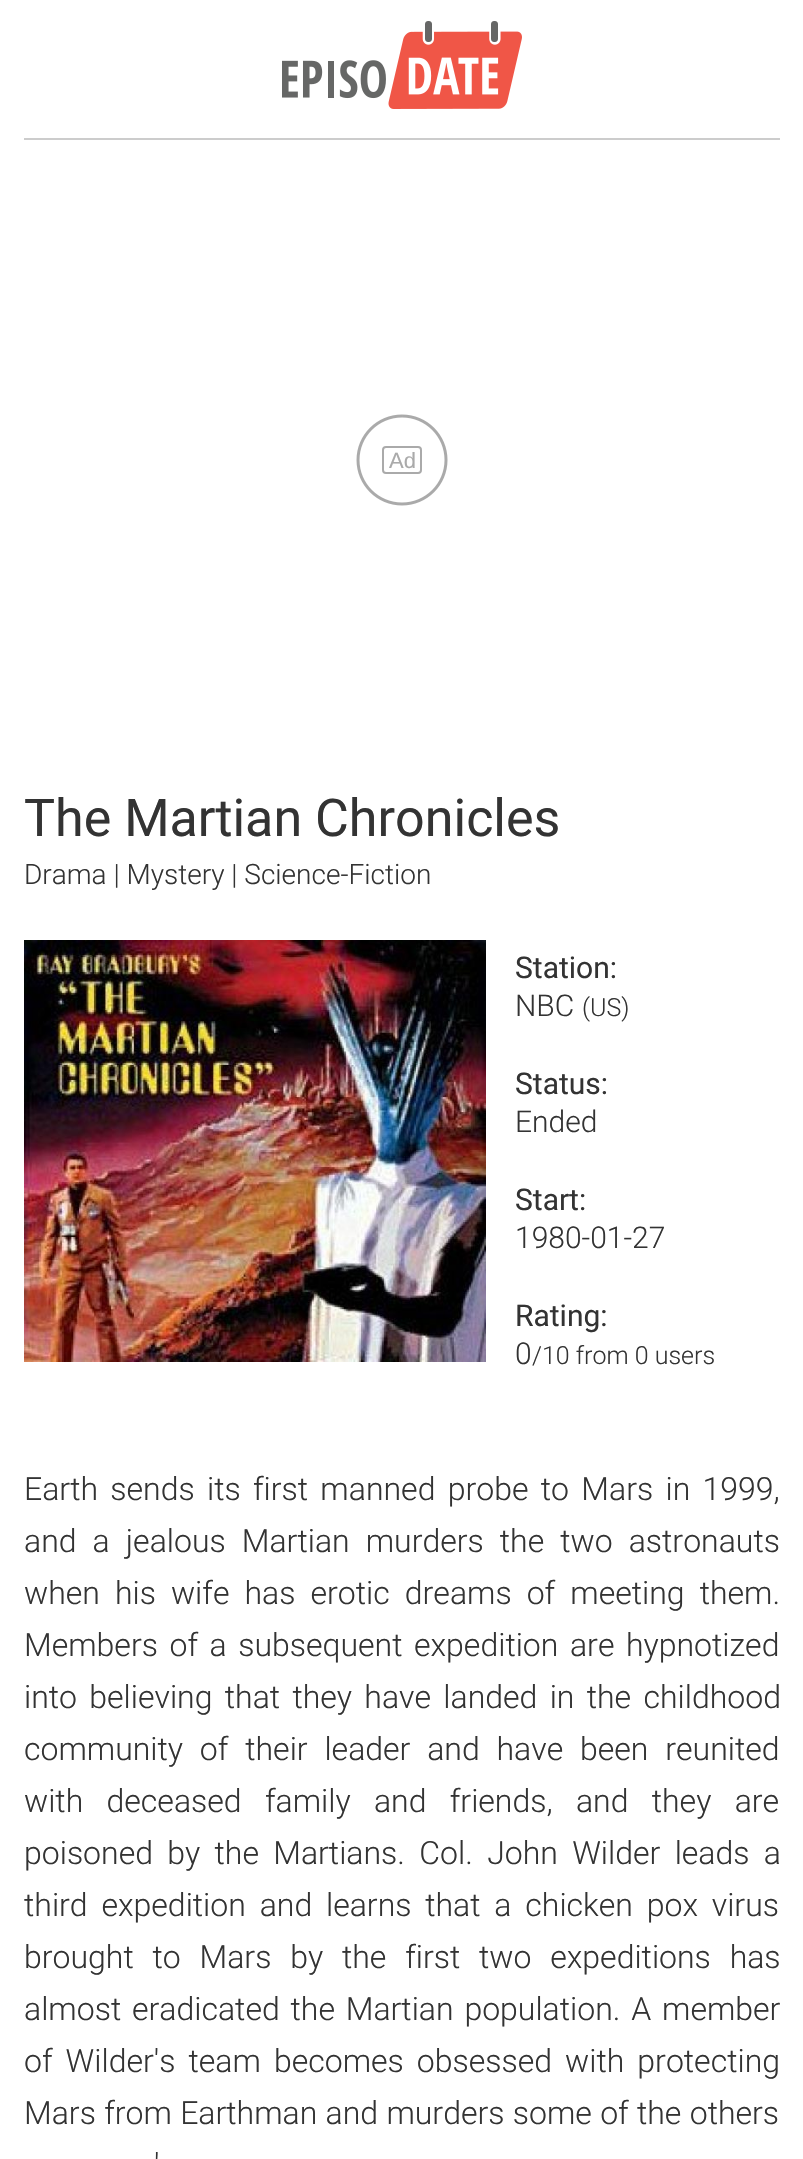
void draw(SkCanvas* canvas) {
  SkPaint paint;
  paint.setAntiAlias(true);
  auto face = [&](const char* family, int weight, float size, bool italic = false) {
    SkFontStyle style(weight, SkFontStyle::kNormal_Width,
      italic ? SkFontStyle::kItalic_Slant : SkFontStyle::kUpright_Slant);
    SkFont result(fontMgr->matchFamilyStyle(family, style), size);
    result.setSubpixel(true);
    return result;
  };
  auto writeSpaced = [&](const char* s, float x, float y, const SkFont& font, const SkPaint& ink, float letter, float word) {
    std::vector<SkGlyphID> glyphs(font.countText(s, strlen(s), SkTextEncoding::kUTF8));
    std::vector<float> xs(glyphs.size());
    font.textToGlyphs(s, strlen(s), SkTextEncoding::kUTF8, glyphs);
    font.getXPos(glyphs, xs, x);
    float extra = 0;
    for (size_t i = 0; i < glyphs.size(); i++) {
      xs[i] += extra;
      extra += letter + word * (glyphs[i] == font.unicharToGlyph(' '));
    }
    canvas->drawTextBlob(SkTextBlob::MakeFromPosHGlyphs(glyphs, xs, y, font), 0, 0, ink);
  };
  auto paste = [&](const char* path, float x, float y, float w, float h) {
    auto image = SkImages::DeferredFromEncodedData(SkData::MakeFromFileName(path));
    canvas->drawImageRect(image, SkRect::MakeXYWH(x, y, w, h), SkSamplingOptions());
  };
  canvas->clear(0xffffffff);
  paint.setColor(0xffcccccc);
  canvas->drawRect(SkRect::MakeXYWH(24, 138, 756, 2), paint);
  paste("img/1.png", 282, 21, 240, 88);
  paint.setStroke(true);
  paint.setStrokeWidth(2);
  paint.setColor(0xffaaaaaa);
  canvas->drawRoundRect(SkRect::MakeXYWH(383, 447, 38, 26), 3, 3, paint);
  paste("img/3.png", 24, 940, 462, 422);
  auto f0 = face("Liberation Sans", 400, 22);
  paint.setStroke(false);
  canvas->drawString("Ad", 389, 468, f0, paint);
  paste("img/2.png", 356, 414, 92, 92);
  auto f1 = face("Roboto", 400, 52);
  paint.setColor(0xff333333);
  canvas->drawString("The Martian Chronicles", 24, 836, f1, paint);
  auto f2 = face("Roboto", 300, 28);
  canvas->drawString("Drama | Mystery | Science-Fiction", 24, 884, f2, paint);
  auto f3 = face("Roboto", 400, 30);
  canvas->drawString("Station:", 515, 978, f3, paint);
  auto f4 = face("Roboto", 300, 30);
  canvas->drawString("NBC", 515, 1016, f4, paint);
  auto f5 = face("Roboto", 300, 25);
  canvas->drawString("(US)", 582, 1016, f5, paint);
  canvas->drawString("Status:", 515, 1094, f3, paint);
  canvas->drawString("Ended", 515, 1132, f4, paint);
  canvas->drawString("Start:", 515, 1210, f3, paint);
  canvas->drawString("1980-01-27", 515, 1248, f4, paint);
  canvas->drawString("Rating:", 515, 1326, f3, paint);
  canvas->drawString("0", 515, 1364, f4, paint);
  canvas->drawString("/10 from 0 users", 532, 1364, f5, paint);
  auto f6 = face("Roboto", 300, 32);
  writeSpaced("Earth sends its first manned probe to Mars in 1999,", 24, 1500, f6, paint, 0, 4.5f);
  writeSpaced("and a jealous Martian murders the two astronauts", 24, 1552, f6, paint, 0, 8.25f);
  writeSpaced("when his wife has erotic dreams of meeting them.", 24, 1604, f6, paint, 0, 7.25f);
  writeSpaced("Members of a subsequent expedition are hypnotized", 24, 1656, f6, paint, 0, 3.75f);
  writeSpaced("into believing that they have landed in the childhood", 24, 1708, f6, paint, 0, 4.5f);
  writeSpaced("community of their leader and have been reunited", 24, 1760, f6, paint, 0, 9);
  writeSpaced("with deceased family and friends, and they are", 24, 1812, f6, paint, 0, 15.5f);
  writeSpaced("poisoned by the Martians. Col. John Wilder leads a", 24, 1864, f6, paint, 0, 6.5f);
  writeSpaced("third expedition and learns that a chicken pox virus", 24, 1916, f6, paint, 0, 6);
  writeSpaced("brought to Mars by the first two expeditions has", 24, 1968, f6, paint, 0, 11);
  writeSpaced("almost eradicated the Martian population. A member", 24, 2020, f6, paint, 0, 3);
  writeSpaced("of Wilder's team becomes obsessed with protecting", 24, 2072, f6, paint, 0, 5.25f);
  writeSpaced("Mars from Earthman and murders some of the others", 24, 2124, f6, paint, 0, 0.5f);
  writeSpaced("'", 154, 2176, f6, paint, 0, 9);
}
